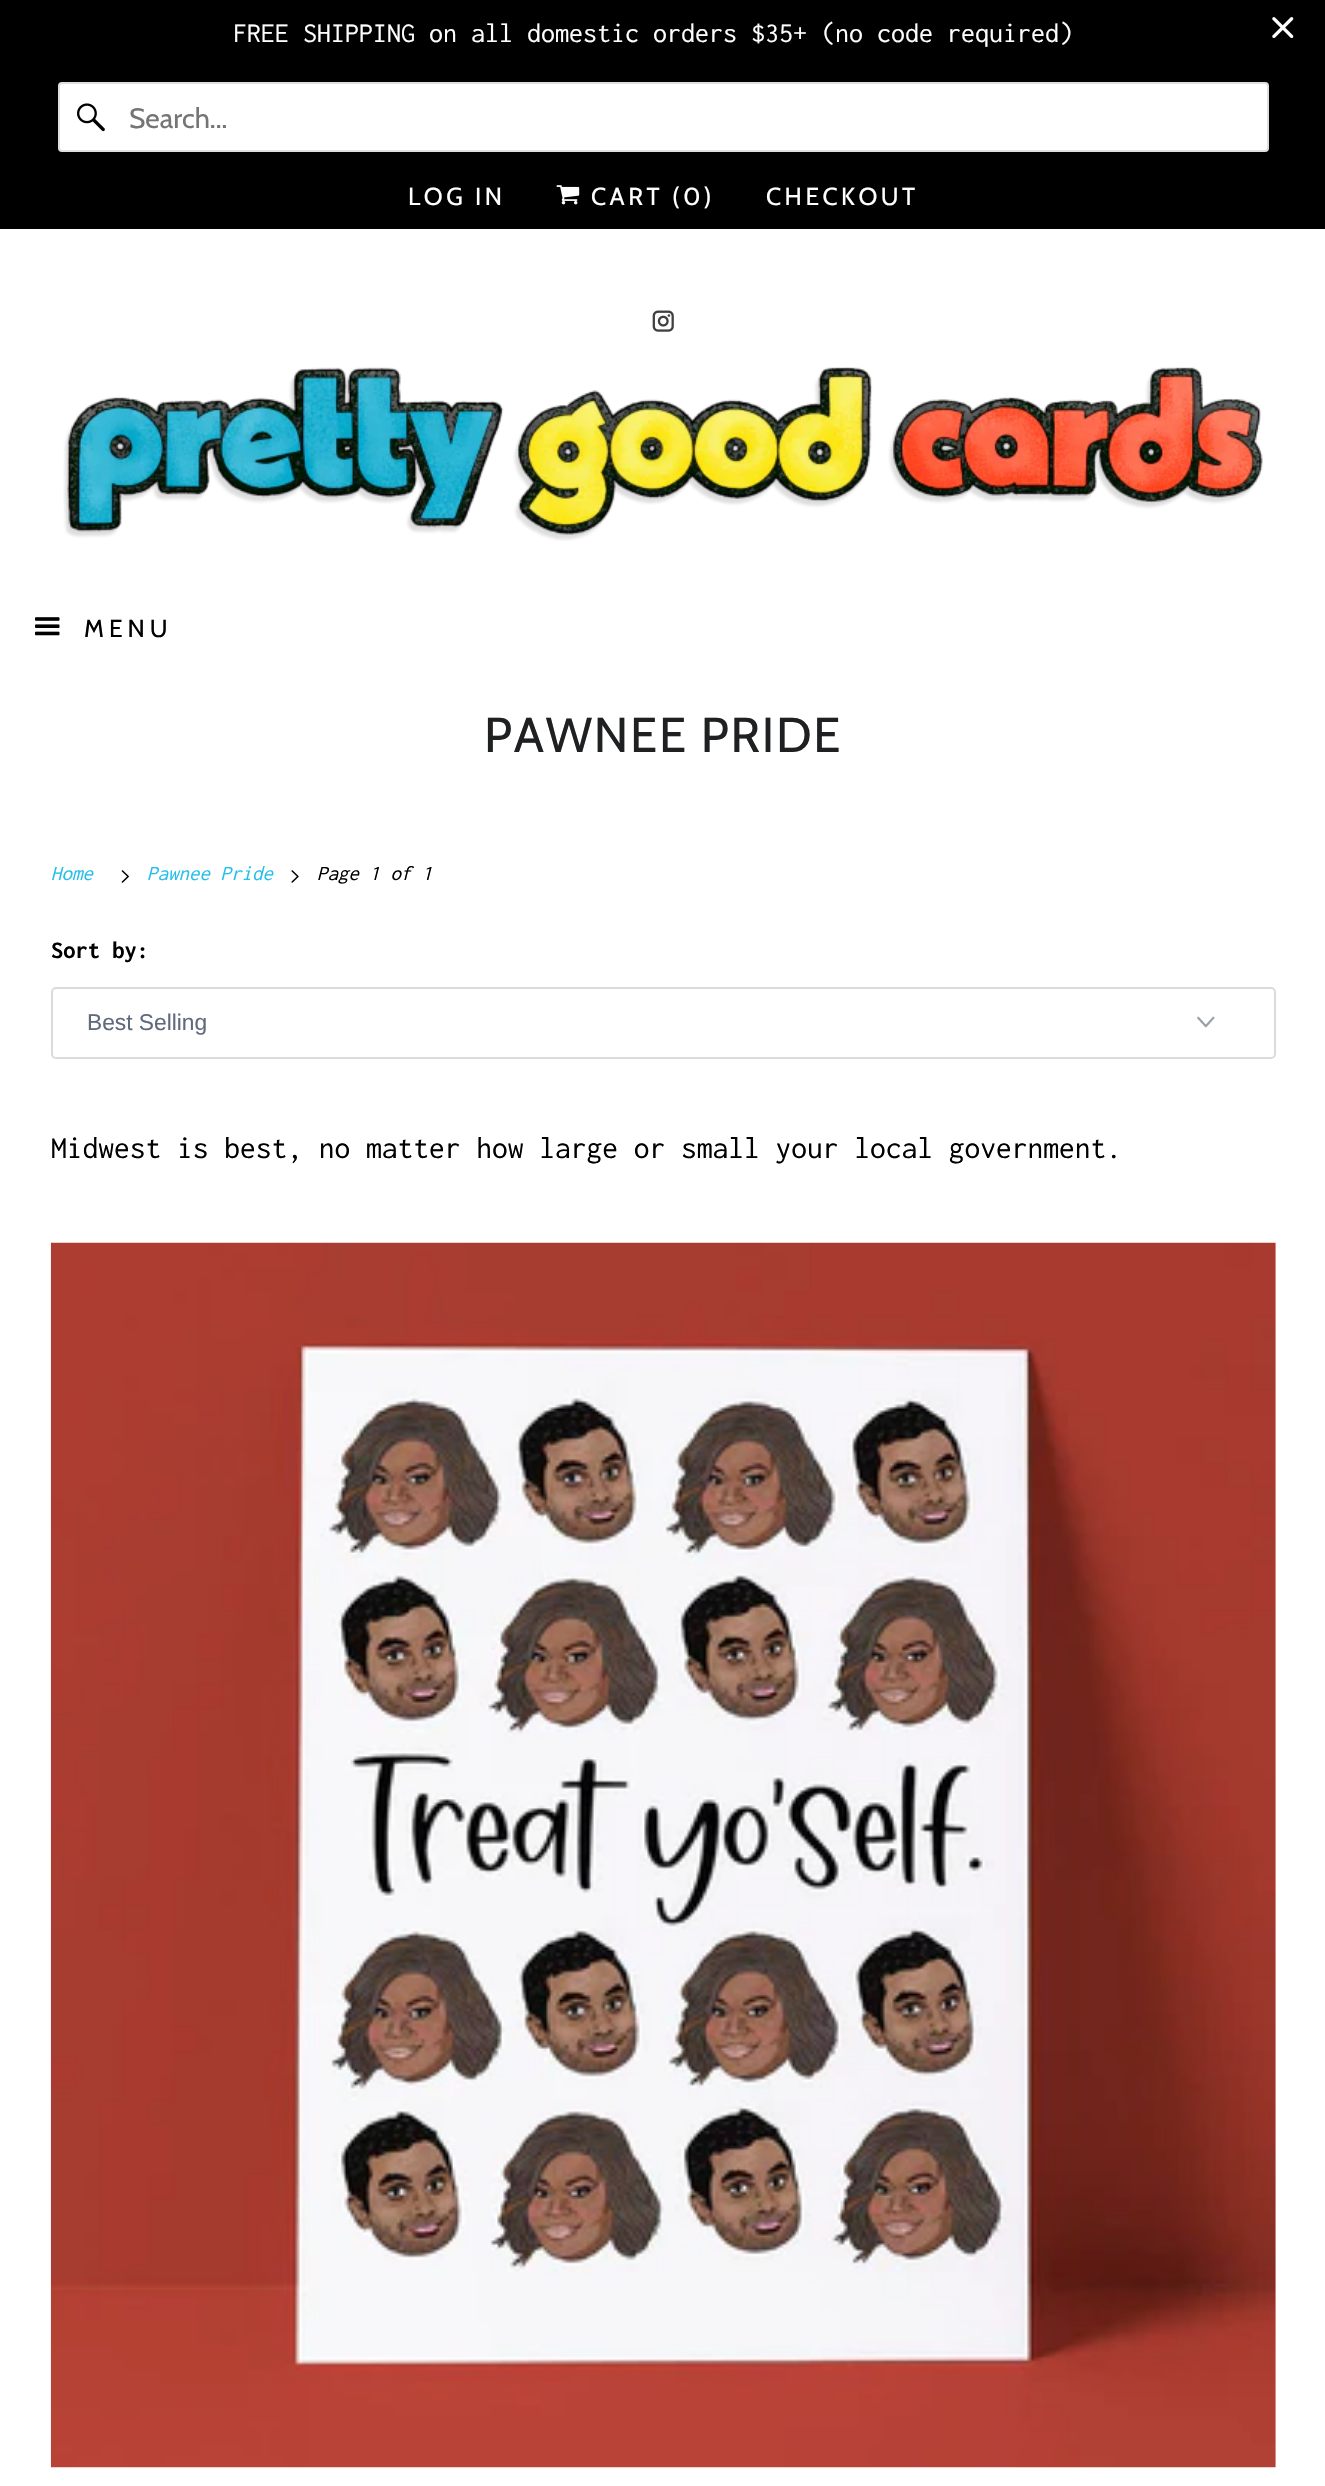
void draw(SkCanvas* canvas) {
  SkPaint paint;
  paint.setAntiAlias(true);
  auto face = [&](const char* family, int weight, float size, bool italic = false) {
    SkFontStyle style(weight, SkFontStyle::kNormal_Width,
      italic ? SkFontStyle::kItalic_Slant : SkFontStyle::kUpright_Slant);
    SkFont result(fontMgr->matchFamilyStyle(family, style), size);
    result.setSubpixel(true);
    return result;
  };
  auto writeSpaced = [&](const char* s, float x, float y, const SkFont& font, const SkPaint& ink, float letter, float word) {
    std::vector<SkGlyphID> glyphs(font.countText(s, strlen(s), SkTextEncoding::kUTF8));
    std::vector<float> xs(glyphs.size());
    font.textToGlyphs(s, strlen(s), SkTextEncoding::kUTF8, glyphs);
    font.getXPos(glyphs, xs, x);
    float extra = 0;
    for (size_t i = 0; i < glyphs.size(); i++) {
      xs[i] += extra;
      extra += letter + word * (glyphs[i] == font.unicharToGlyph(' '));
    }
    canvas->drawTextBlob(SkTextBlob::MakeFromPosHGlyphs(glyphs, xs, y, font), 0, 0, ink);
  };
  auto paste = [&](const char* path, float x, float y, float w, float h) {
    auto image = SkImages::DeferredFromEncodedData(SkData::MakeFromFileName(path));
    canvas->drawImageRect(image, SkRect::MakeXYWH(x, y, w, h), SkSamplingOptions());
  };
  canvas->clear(0xffffffff);
  paint.setColor(0xff000000);
  canvas->drawRect(SkRect::MakeXYWH(0, 0, 1325, 229), paint);
  paste("img/1.png", 1272, 17, 22, 22);
  paint.setColor(0xffffffff);
  canvas->drawRoundRect(SkRect::MakeXYWH(59, 83, 1209, 68), 3, 3, paint);
  paint.setStroke(true);
  paint.setStrokeWidth(2);
  paint.setColor(0xffdfdfdf);
  canvas->drawRoundRect(SkRect::MakeXYWH(59, 83, 1209, 68), 3, 3, paint);
  paste("img/2.png", 77, 103, 28, 29);
  paste("img/3.png", 556, 185, 24, 20);
  paste("img/4.png", 652, 310, 22, 22);
  paste("img/5.png", 63, 367, 1200, 174);
  paste("img/6.png", 35, 617, 25, 19);
  paste("img/7.png", 121, 870, 8, 13);
  paste("img/8.png", 291, 870, 8, 13);
  paste("img/9.png", 1197, 1016, 18, 12);
  paint.setColor(0xffd9dbdc);
  canvas->drawRoundRect(SkRect::MakeXYWH(52, 988, 1223, 70), 4, 4, paint);
  paste("img/10.png", 50, 1242, 1226, 1226);
  auto f0 = face("Inconsolata", 400, 28);
  paint.setStroke(false);
  paint.setColor(0xffffffff);
  canvas->drawString("FREE SHIPPING on all domestic orders $35+ (no code required)", 233, 42, f0, paint);
  auto f1 = face("Cabin", 400, 28);
  paint.setColor(0xff757575);
  canvas->drawString("Search...", 129, 128, f1, paint);
  auto f2 = face("Cabin", 400, 24.5f);
  paint.setColor(0xffffffff);
  {
    const struct { const char* s; float x, y; } items[] = {
      {"LOG IN", 408, 205},
      {"CART (0)", 591, 205},
      {"CHECKOUT", 766, 205},
    };
    for (auto [s, x, y] : items) {
      writeSpaced(s, x, y, f2, paint, 3.5f, 0);
    }
  }
  paint.setColor(0xff000000);
  writeSpaced("MENU", 84, 637, f2, paint, 5, 0);
  auto f3 = face("Cabin", 400, 49);
  paint.setColor(0xff1f2022);
  writeSpaced("PAWNEE PRIDE", 484, 752, f3, paint, 1.75f, 0);
  auto f4 = face("Inconsolata", 400, 21, true);
  paint.setColor(0xff25bfec);
  canvas->drawString("Home", 51, 880, f4, paint);
  canvas->drawString("Pawnee Pride", 147, 880, f4, paint);
  paint.setColor(0xff000000);
  canvas->drawString("Page 1 of 1", 317, 880, f4, paint);
  auto f5 = face("Inconsolata", 700, 24.5f);
  canvas->drawString("Sort by:", 51, 958, f5, paint);
  auto f6 = face("Liberation Sans", 400, 22.75f);
  paint.setColor(0xff5f6a7d);
  canvas->drawString("Best Selling", 87, 1030, f6, paint);
  auto f7 = face("Inconsolata", 400, 31.5f);
  paint.setColor(0xff000000);
  canvas->drawString("Midwest is best, no matter how large or small your local government.", 51, 1158, f7, paint);
}
